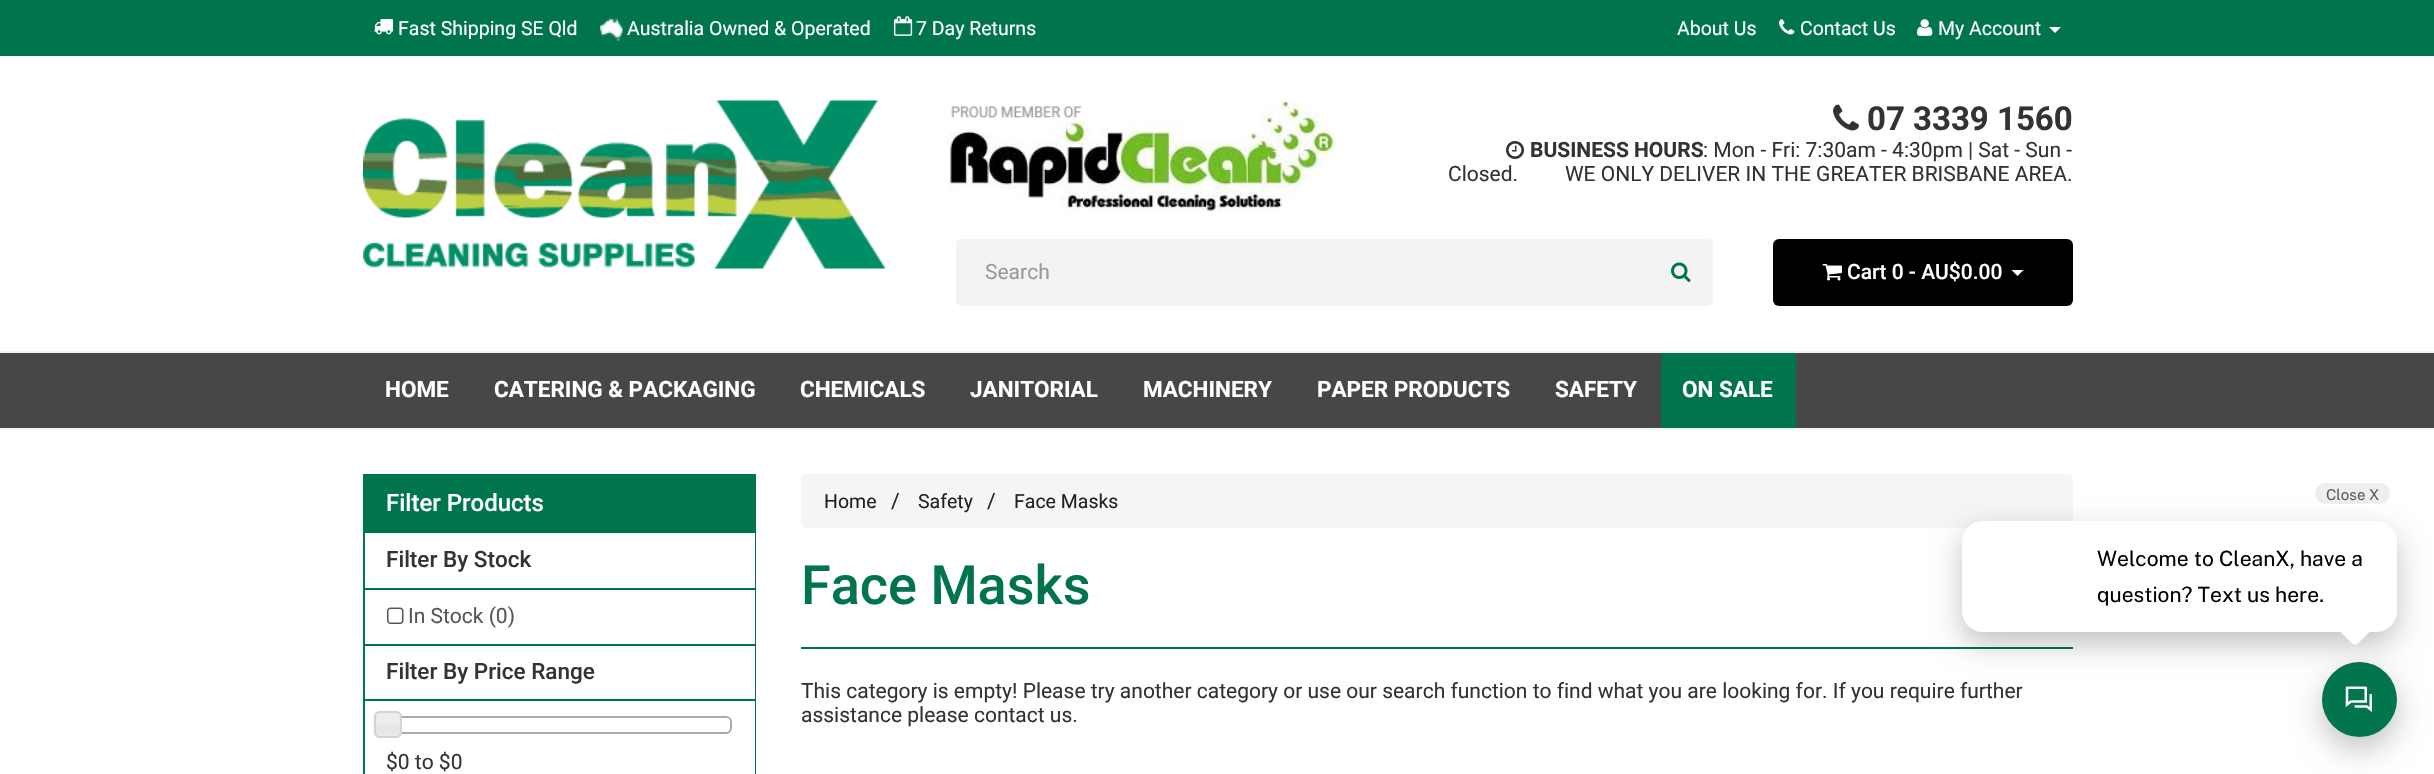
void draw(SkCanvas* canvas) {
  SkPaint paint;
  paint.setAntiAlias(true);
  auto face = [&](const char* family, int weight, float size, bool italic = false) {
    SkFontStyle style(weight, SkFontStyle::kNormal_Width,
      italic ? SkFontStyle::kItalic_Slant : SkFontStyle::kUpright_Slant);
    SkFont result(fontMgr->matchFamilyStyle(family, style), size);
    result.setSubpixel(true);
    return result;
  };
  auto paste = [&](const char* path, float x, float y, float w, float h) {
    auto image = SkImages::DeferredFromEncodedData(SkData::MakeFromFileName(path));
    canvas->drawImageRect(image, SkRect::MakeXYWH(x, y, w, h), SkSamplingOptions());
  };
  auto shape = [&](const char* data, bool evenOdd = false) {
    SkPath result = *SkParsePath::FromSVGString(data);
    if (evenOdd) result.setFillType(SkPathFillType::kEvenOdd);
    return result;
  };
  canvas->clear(0xffffffff);
  paint.setColor(0xff00754c);
  canvas->drawRect(SkRect::MakeXYWH(0, 0, 2434, 56), paint);
  paste("img/1.png", 374, 19, 19, 16);
  paste("img/2.png", 600, 18, 23, 23);
  paste("img/3.png", 894, 16, 19, 20);
  paste("img/4.png", 1779, 19, 16, 16);
  paste("img/5.png", 1917, 19, 16, 17);
  paint.setColor(0xffffffff);
  canvas->drawPath(shape("M2049 27H2061L2055 33Z"), paint);
  paste("img/6.png", 363, 100, 522, 169);
  paste("img/7.png", 948, 100, 387, 113);
  paste("img/8.png", 1833, 104, 26, 27);
  paste("img/9.png", 1506, 141, 18, 18);
  paint.setColor(0xfff3f3f3);
  canvas->drawPath(shape("M962 239H1650V306H962C958.5 306 956 303.5 956 300V245C956 241.5 958.5 239 962 239Z"), paint);
  canvas->drawPath(shape("M1649 239H1707C1710.5 239 1713 241.5 1713 245V300C1713 303.5 1710.5 306 1707 306H1649Z"), paint);
  paste("img/10.png", 1671, 262, 20, 20);
  paint.setColor(0xff000000);
  canvas->drawRoundRect(SkRect::MakeXYWH(1773, 239, 300, 67), 6, 6, paint);
  paste("img/11.png", 1822, 264, 20, 17);
  paint.setColor(0xffffffff);
  canvas->drawPath(shape("M2011.5 270H2023.5L2017.5 276Z"), paint);
  {
    const struct { float x, y, w, h; SkColor color; } items[] = {
      {0, 353, 2434, 75, 0xff474747},
      {0, 351, 2434, 2, 0xfff3f3f3},
      {0, 428, 2434, 2, 0xfff3f3f3},
      {1661, 353, 135, 75, 0xff00754c},
    };
    for (auto [x, y, w, h, color] : items) {
      paint.setColor(color);
      canvas->drawRect(SkRect::MakeXYWH(x, y, w, h), paint);
    }
  }
  paint.setStroke(true);
  paint.setStrokeWidth(2);
  canvas->drawRect(SkRect::MakeXYWH(364, 475, 391, 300), paint);
  paint.setStroke(false);
  {
    const struct { float x, y, w, h; SkColor color; } items[] = {
      {365, 476, 389, 55, 0xff00754c},
      {754, 533, 1, 55, 0xffffffff},
      {365, 531, 390, 2, 0xff00754c},
      {754, 590, 1, 54, 0xffffffff},
      {365, 588, 390, 2, 0xff00754c},
    };
    for (auto [x, y, w, h, color] : items) {
      paint.setColor(color);
      canvas->drawRect(SkRect::MakeXYWH(x, y, w, h), paint);
    }
  }
  paste("img/12.png", 387, 607, 17, 17);
  {
    const struct { float x, y, w, h; SkColor color; } items[] = {
      {754, 646, 1, 53, 0xffffffff},
      {365, 644, 390, 2, 0xff00754c},
      {754, 701, 1, 73, 0xffffffff},
      {365, 699, 390, 2, 0xff00754c},
    };
    for (auto [x, y, w, h, color] : items) {
      paint.setColor(color);
      canvas->drawRect(SkRect::MakeXYWH(x, y, w, h), paint);
    }
  }
  paint.setStroke(true);
  paint.setColor(0xffaaaaaa);
  canvas->drawRoundRect(SkRect::MakeXYWH(388, 717, 343, 16), 5, 5, paint);
  paste("img/13.png", 373, 711, 29, 27);
  paint.setColor(0xffd3d3d3);
  canvas->drawRoundRect(SkRect::MakeXYWH(375, 712, 26, 25), 5, 5, paint);
  paste("img/14.png", 373, 711, 29, 27);
  canvas->drawRoundRect(SkRect::MakeXYWH(375, 712, 26, 25), 5, 5, paint);
  paint.setStroke(false);
  paint.setColor(0xfff5f5f5);
  canvas->drawRoundRect(SkRect::MakeXYWH(801, 474, 1272, 54), 6, 6, paint);
  paint.setColor(0xff00754c);
  canvas->drawRect(SkRect::MakeXYWH(801, 647, 1272, 2), paint);
  paint.setColor(0x3d000000);
  paint.setMaskFilter(SkMaskFilter::MakeBlur(kNormal_SkBlurStyle, 15));
  canvas->drawRoundRect(SkRect::MakeXYWH(2322, 674, 75, 75), 37.5f, 37.5f, paint);
  paint.setMaskFilter(nullptr);
  paint.setColor(0xff02754c);
  canvas->drawCircle(2359.5f, 699.5f, 37.5f, paint);
  paste("img/15.png", 2345, 686, 27, 26);
  paint.setColor(0x3d000000);
  paint.setMaskFilter(SkMaskFilter::MakeBlur(kNormal_SkBlurStyle, 15));
  canvas->drawRoundRect(SkRect::MakeXYWH(1962, 533, 435, 111), 21, 21, paint);
  paint.setMaskFilter(nullptr);
  paint.setColor(0xffffffff);
  canvas->drawRoundRect(SkRect::MakeXYWH(1962, 521, 435, 111), 21, 21, paint);
  paint.setColor(0xffeeeeee);
  canvas->drawRoundRect(SkRect::MakeXYWH(2315, 483, 75, 21), 10.5f, 10.5f, paint);
  paint.setColor(0xffffffff);
  canvas->drawPath(shape("M2359 608.5L2372 621.5C2374.5 623.5 2374.5 627.5 2372 629.5L2359 642.5C2357 645 2353 645 2351 642.5L2338 629.5C2335.5 627.5 2335.5 623.5 2338 621.5L2351 608.5C2353 606 2357 606 2359 608.5Z"), paint);
  auto f0 = face("Roboto", 400, 19.5f);
  {
    const struct { const char* s; float x, y; } items[] = {
      {"Fast Shipping SE Qld", 398, 35},
      {"Australia Owned & Operated", 627, 35},
      {"7 Day Returns", 916, 35},
      {"About Us", 1677, 35},
      {"Contact Us", 1800, 35},
      {"My Account", 1938, 35},
    };
    for (auto [s, x, y] : items) {
      canvas->drawString(s, x, y, f0, paint);
    }
  }
  auto f1 = face("Roboto", 700, 33);
  paint.setColor(0xff333333);
  canvas->drawString("07 3339 1560", 1867, 130, f1, paint);
  auto f2 = face("Roboto", 700, 21);
  canvas->drawString("BUSINESS HOURS", 1530, 157, f2, paint);
  auto f3 = face("Roboto", 400, 21);
  canvas->drawString(": Mon - Fri: 7:30am - 4:30pm | Sat - Sun -", 1703, 157, f3, paint);
  canvas->drawString("Closed.         WE ONLY DELIVER IN THE GREATER BRISBANE AREA.", 1448, 181, f3, paint);
  paint.setColor(0xff999999);
  canvas->drawString("Search", 985, 279, f3, paint);
  auto f4 = face("Roboto", 500, 21);
  paint.setColor(0xffffffff);
  canvas->drawString("Cart 0 - AU$0.00", 1847, 279, f4, paint);
  auto f5 = face("Roboto", 700, 22.5f);
  {
    const struct { const char* s; float x, y; } items[] = {
      {"HOME", 385, 397},
      {"CATERING & PACKAGING", 494, 397},
      {"CHEMICALS", 800, 397},
      {"JANITORIAL", 970, 397},
      {"MACHINERY", 1143, 397},
      {"PAPER PRODUCTS", 1317, 397},
      {"SAFETY", 1555, 397},
      {"ON SALE", 1682, 397},
    };
    for (auto [s, x, y] : items) {
      canvas->drawString(s, x, y, f5, paint);
    }
  }
  auto f6 = face("Roboto", 500, 24);
  canvas->drawString("Filter Products", 386, 511, f6, paint);
  auto f7 = face("Roboto", 500, 22.5f);
  paint.setColor(0xff333333);
  canvas->drawString("Filter By Stock", 386, 567, f7, paint);
  paint.setColor(0xff555555);
  canvas->drawString("In Stock (0)", 408, 623, f3, paint);
  paint.setColor(0xff333333);
  canvas->drawString("Filter By Price Range", 386, 679, f7, paint);
  canvas->drawString("$0 to $0", 386, 769, f3, paint);
  paint.setColor(0xff222222);
  canvas->drawString("Home", 824, 508, f0, paint);
  canvas->drawString("/", 891, 508, f3, paint);
  canvas->drawString("Safety", 918, 508, f0, paint);
  canvas->drawString("/", 987, 508, f3, paint);
  canvas->drawString("Face Masks", 1014, 508, f0, paint);
  auto f8 = face("Roboto", 500, 54);
  paint.setColor(0xff00754c);
  canvas->drawString("Face Masks", 801, 604, f8, paint);
  paint.setColor(0xff333333);
  canvas->drawString("This category is empty! Please try another category or use our search function to find what you are looking for. If you require further", 801, 698, f3, paint);
  canvas->drawString("assistance please contact us.", 801, 722, f3, paint);
  auto f9 = face("Public Sans", 100, 15);
  paint.setColor(0xff5d5d5d);
  canvas->drawString("Close X", 2326, 500, f9, paint);
  auto f10 = face("Public Sans", 100, 21);
  paint.setColor(0xff000000);
  canvas->drawString("Welcome to CleanX, have a", 2097, 566, f10, paint);
  canvas->drawString("question? Text us here.", 2097, 602, f10, paint);
}
